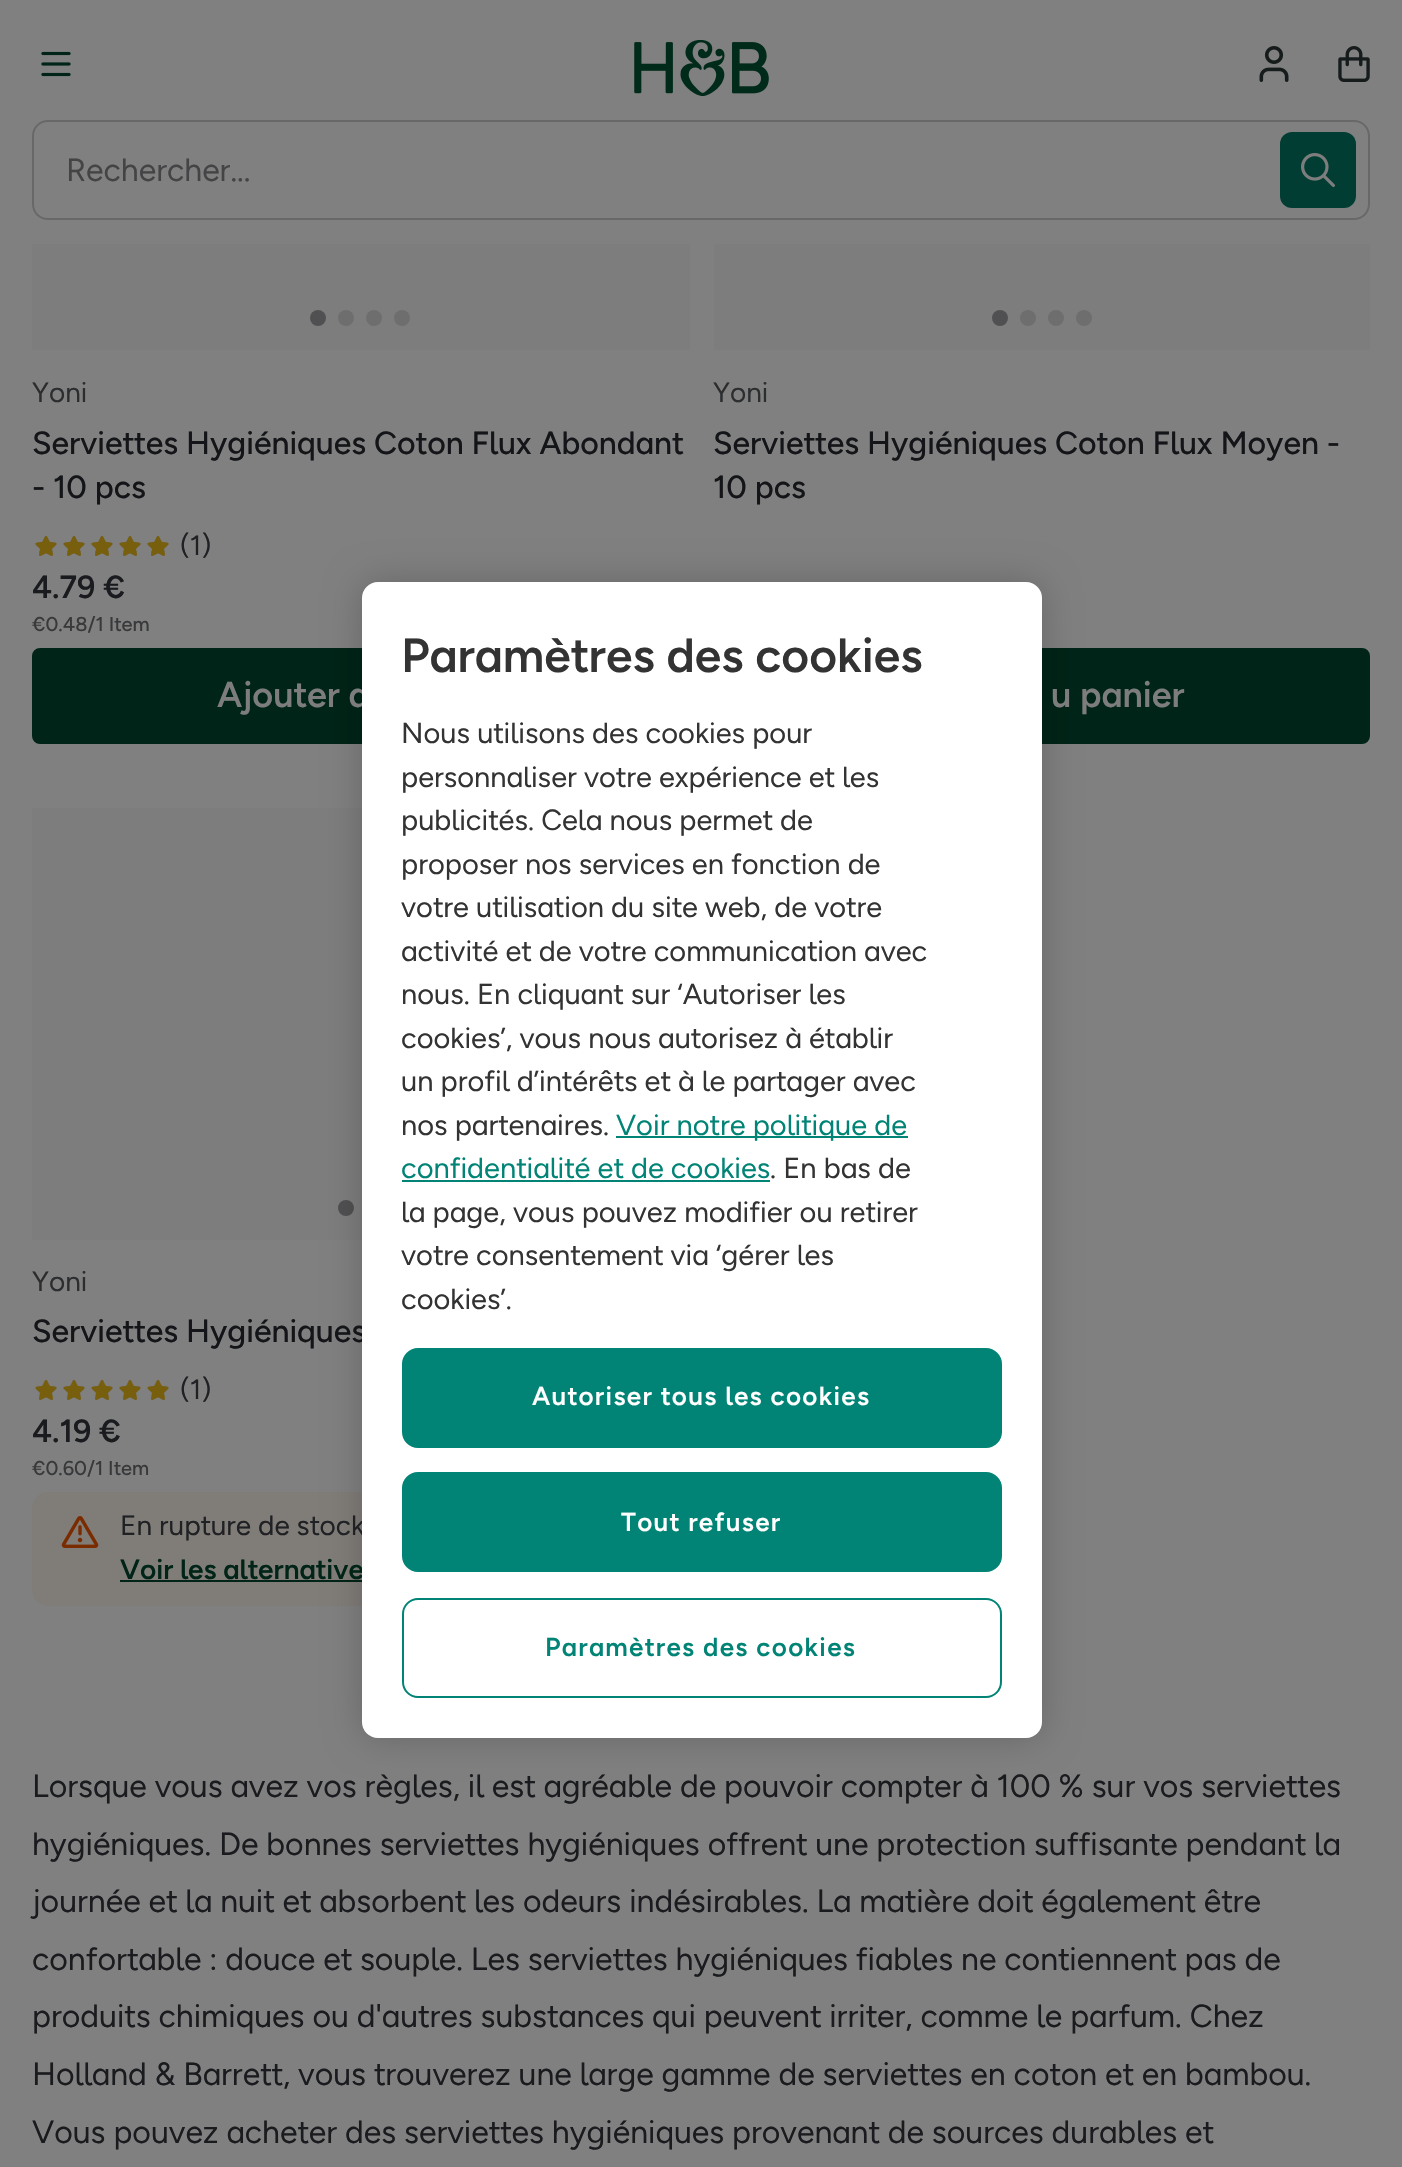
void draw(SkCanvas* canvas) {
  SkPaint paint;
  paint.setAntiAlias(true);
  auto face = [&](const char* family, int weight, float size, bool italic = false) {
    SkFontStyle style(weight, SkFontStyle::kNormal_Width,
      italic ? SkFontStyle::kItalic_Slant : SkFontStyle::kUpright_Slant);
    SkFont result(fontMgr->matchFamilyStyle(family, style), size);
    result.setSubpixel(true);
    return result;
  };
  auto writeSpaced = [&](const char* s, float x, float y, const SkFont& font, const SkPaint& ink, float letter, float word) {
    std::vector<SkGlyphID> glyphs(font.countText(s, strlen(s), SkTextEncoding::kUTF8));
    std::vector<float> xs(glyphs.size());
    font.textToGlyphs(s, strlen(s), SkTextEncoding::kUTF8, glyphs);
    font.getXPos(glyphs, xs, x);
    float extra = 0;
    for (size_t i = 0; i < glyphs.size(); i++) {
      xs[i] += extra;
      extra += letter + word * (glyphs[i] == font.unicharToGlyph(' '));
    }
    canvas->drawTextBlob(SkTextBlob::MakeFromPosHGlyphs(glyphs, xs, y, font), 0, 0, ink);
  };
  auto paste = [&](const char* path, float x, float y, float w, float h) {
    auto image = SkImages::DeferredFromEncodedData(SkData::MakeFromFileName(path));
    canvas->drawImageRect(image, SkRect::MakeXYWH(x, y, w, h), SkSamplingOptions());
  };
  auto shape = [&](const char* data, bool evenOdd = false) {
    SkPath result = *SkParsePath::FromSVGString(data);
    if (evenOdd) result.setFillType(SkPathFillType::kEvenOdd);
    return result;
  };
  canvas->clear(0xff808080);
  paste("img/1.png", 41, 51, 30, 26);
  paste("img/2.png", 634, 40, 135, 56);
  paste("img/3.png", 1259, 46, 30, 36);
  paste("img/4.png", 1338, 46, 32, 36);
  paint.setColor(0xff686869);
  canvas->drawPath(shape("M48 120H1280V220H48C39 220 32 213 32 204V136C32 127 39 120 48 120ZM48 122H1280V218H48C40 218 34 212 34 204V136C34 128 40 122 48 122Z", true), paint);
  canvas->drawPath(shape("M1280 120H1354C1363 120 1370 127 1370 136V204C1370 213 1363 220 1354 220H1280ZM1280 122H1354C1362 122 1368 128 1368 136V204C1368 212 1362 218 1354 218H1280Z", true), paint);
  paint.setColor(0xff013d33);
  canvas->drawRoundRect(SkRect::MakeXYWH(1280, 132, 76, 76), 12, 12, paint);
  paste("img/5.png", 1301, 153, 34, 34);
  paint.setColor(0xff7d7d7d);
  canvas->drawRect(SkRect::MakeXYWH(32, 244, 658, 106), paint);
  paint.setColor(0xff505052);
  canvas->drawCircle(318, 318, 8, paint);
  paint.setColor(0xff6e6e6f);
  canvas->drawCircle(346, 318, 8, paint);
  canvas->drawCircle(374, 318, 8, paint);
  canvas->drawCircle(402, 318, 8, paint);
  paste("img/6.png", 35, 536, 22, 20);
  paste("img/6.png", 63, 536, 22, 20);
  paste("img/6.png", 91, 536, 22, 20);
  paste("img/6.png", 119, 536, 22, 20);
  paste("img/6.png", 147, 536, 22, 20);
  paste("img/7.png", 35, 536, 22, 20);
  paste("img/7.png", 63, 536, 22, 20);
  paste("img/7.png", 91, 536, 22, 20);
  paste("img/7.png", 119, 536, 22, 20);
  paste("img/7.png", 147, 536, 22, 20);
  paint.setColor(0xff002417);
  canvas->drawRoundRect(SkRect::MakeXYWH(33, 649, 656, 94), 7, 7, paint);
  paint.setStroke(true);
  paint.setStrokeWidth(2);
  canvas->drawRoundRect(SkRect::MakeXYWH(33, 649, 656, 94), 7, 7, paint);
  paint.setStroke(false);
  paint.setColor(0xff7d7d7d);
  canvas->drawRect(SkRect::MakeXYWH(714, 244, 656, 106), paint);
  paint.setColor(0xff505052);
  canvas->drawCircle(1000, 318, 8, paint);
  paint.setColor(0xff6e6e6f);
  canvas->drawCircle(1028, 318, 8, paint);
  canvas->drawCircle(1056, 318, 8, paint);
  canvas->drawCircle(1084, 318, 8, paint);
  paint.setColor(0xff002417);
  canvas->drawRoundRect(SkRect::MakeXYWH(715, 649, 654, 94), 7, 7, paint);
  paint.setStroke(true);
  canvas->drawRoundRect(SkRect::MakeXYWH(715, 649, 654, 94), 7, 7, paint);
  paint.setStroke(false);
  paint.setColor(0xff7d7d7d);
  canvas->drawRect(SkRect::MakeXYWH(32, 808, 330, 432), paint);
  paint.setColor(0xff505052);
  canvas->drawCircle(346, 1208, 8, paint);
  paste("img/6.png", 35, 1380, 22, 20);
  paste("img/6.png", 63, 1380, 22, 20);
  paste("img/6.png", 91, 1380, 22, 20);
  paste("img/6.png", 119, 1380, 22, 20);
  paste("img/6.png", 147, 1380, 22, 20);
  paste("img/7.png", 35, 1380, 22, 20);
  paste("img/7.png", 63, 1380, 22, 20);
  paste("img/7.png", 91, 1380, 22, 20);
  paste("img/7.png", 119, 1380, 22, 20);
  paste("img/7.png", 147, 1380, 22, 20);
  paint.setColor(0xff807c78);
  canvas->drawRoundRect(SkRect::MakeXYWH(32, 1492, 658, 114), 16, 16, paint);
  paste("img/8.png", 61, 1516, 38, 32);
  paint.setColor(0xff002417);
  canvas->drawRect(SkRect::MakeXYWH(120, 1580, 242, 2), paint);
  paint.setColor(0x33000000);
  paint.setMaskFilter(SkMaskFilter::MakeBlur(kNormal_SkBlurStyle, 18));
  canvas->drawRoundRect(SkRect::MakeXYWH(362, 582, 680, 1156), 16, 16, paint);
  paint.setMaskFilter(nullptr);
  auto f0 = face("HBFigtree", 400, 32);
  paint.setColor(0xff444446);
  canvas->drawString("Rechercher...", 66, 181, f0, paint);
  auto f1 = face("HBFigtree", 400, 28);
  paint.setColor(0xff2c2d2f);
  canvas->drawString("Yoni", 32, 402, f1, paint);
  auto f2 = face("HBFigtree", 500, 32);
  paint.setColor(0xff141518);
  canvas->drawString("Serviettes Hygiéniques Coton Flux Abondant", 32, 454, f2, paint);
  canvas->drawString("- 10 pcs", 32, 498, f2, paint);
  paint.setColor(0xff202124);
  canvas->drawString("(1)", 180, 555, f1, paint);
  auto f3 = face("HBFigtree", 600, 32);
  paint.setColor(0xff1a1b1e);
  canvas->drawString("4.79 €", 32, 598, f3, paint);
  auto f4 = face("HBFigtree", 500, 20);
  paint.setColor(0xff38393b);
  canvas->drawString("€0.48/1 Item", 32, 631, f4, paint);
  auto f5 = face("HBFigtree", 600, 36);
  paint.setColor(0xff7d7d7d);
  canvas->drawString("Ajouter a", 217, 707, f5, paint);
  paint.setColor(0xff2c2d2f);
  canvas->drawString("Yoni", 713, 402, f1, paint);
  paint.setColor(0xff141518);
  canvas->drawString("Serviettes Hygiéniques Coton Flux Moyen -", 713, 454, f2, paint);
  canvas->drawString("10 pcs", 713, 498, f2, paint);
  paint.setColor(0xff7d7d7d);
  canvas->drawString("u panier", 1051, 707, f5, paint);
  paint.setColor(0xff2c2d2f);
  canvas->drawString("Yoni", 32, 1291, f1, paint);
  paint.setColor(0xff141518);
  canvas->drawString("Serviettes Hygiéniques", 32, 1342, f2, paint);
  paint.setColor(0xff202124);
  canvas->drawString("(1)", 180, 1399, f1, paint);
  paint.setColor(0xff1a1b1e);
  canvas->drawString("4.19 €", 32, 1442, f3, paint);
  paint.setColor(0xff38393b);
  canvas->drawString("€0.60/1 Item", 32, 1475, f4, paint);
  paint.setColor(0xff202124);
  canvas->drawString("En rupture de stock", 120, 1535, f1, paint);
  auto f6 = face("HBFigtree", 600, 28);
  paint.setColor(0xff002417);
  canvas->drawString("Voir les alternative", 120, 1579, f6, paint);
  paint.setColor(0xff1a1b1e);
  {
    const struct { const char* s; float x, y; } items[] = {
      {"Lorsque vous avez vos règles, il est agréable de pouvoir compter à 100 % sur vos serviettes", 32, 1797},
      {"hygiéniques. De bonnes serviettes hygiéniques offrent une protection suffisante pendant la", 32, 1855},
      {"journée et la nuit et absorbent les odeurs indésirables. La matière doit également être", 32, 1912},
      {"confortable : douce et souple. Les serviettes hygiéniques fiables ne contiennent pas de", 32, 1970},
      {"produits chimiques ou d'autres substances qui peuvent irriter, comme le parfum. Chez", 32, 2027},
      {"Holland & Barrett, vous trouverez une large gamme de serviettes en coton et en bambou.", 32, 2085},
      {"Vous pouvez acheter des serviettes hygiéniques provenant de sources durables et", 32, 2143},
    };
    for (auto [s, x, y] : items) {
      canvas->drawString(s, x, y, f0, paint);
    }
  }
  paint.setColor(0xffffffff);
  canvas->drawRoundRect(SkRect::MakeXYWH(362, 582, 680, 1156), 16, 16, paint);
  auto f7 = face("HBFigtree", 600, 48);
  paint.setColor(0xff333333);
  canvas->drawString("Paramètres des cookies", 401, 672, f7, paint);
  auto f8 = face("HBFigtree", 400, 29);
  {
    const struct { const char* s; float x, y; } items[] = {
      {"Nous utilisons des cookies pour", 401, 743},
      {"personnaliser votre expérience et les", 401, 787},
      {"publicités. Cela nous permet de", 401, 830},
      {"proposer nos services en fonction de", 401, 874},
      {"votre utilisation du site web, de votre", 401, 917},
      {"activité et de votre communication avec", 401, 961},
      {"nous. En cliquant sur ‘Autoriser les", 401, 1004},
      {"cookies’, vous nous autorisez à établir", 401, 1048},
      {"un profil d’intérêts et à le partager avec", 401, 1091},
      {"nos partenaires.", 401, 1135},
    };
    for (auto [s, x, y] : items) {
      canvas->drawString(s, x, y, f8, paint);
    }
  }
  paint.setColor(0xff018476);
  canvas->drawRect(SkRect::MakeXYWH(616, 1136, 292, 2), paint);
  canvas->drawString("Voir notre politique de", 616, 1135, f8, paint);
  canvas->drawString("confidentialité et de cookies", 401, 1178, f8, paint);
  canvas->drawRect(SkRect::MakeXYWH(402, 1180, 368, 2), paint);
  paint.setColor(0xff333333);
  {
    const struct { const char* s; float x, y; } items[] = {
      {". En bas de", 770, 1178},
      {"la page, vous pouvez modifier ou retirer", 401, 1222},
      {"votre consentement via ‘gérer les", 401, 1265},
      {"cookies’.", 401, 1309},
    };
    for (auto [s, x, y] : items) {
      canvas->drawString(s, x, y, f8, paint);
    }
  }
  paint.setColor(0xff018476);
  canvas->drawRoundRect(SkRect::MakeXYWH(403, 1349, 598, 98), 15, 15, paint);
  paint.setStroke(true);
  canvas->drawRoundRect(SkRect::MakeXYWH(403, 1349, 598, 98), 15, 15, paint);
  auto f9 = face("HBFigtree", 600, 26);
  paint.setStroke(false);
  paint.setColor(0xffffffff);
  writeSpaced("Autoriser tous les cookies", 532, 1405, f9, paint, 1.3f, 0);
  paint.setColor(0xff018476);
  canvas->drawRoundRect(SkRect::MakeXYWH(403, 1473, 598, 98), 15, 15, paint);
  paint.setStroke(true);
  canvas->drawRoundRect(SkRect::MakeXYWH(403, 1473, 598, 98), 15, 15, paint);
  paint.setStroke(false);
  paint.setColor(0xffffffff);
  writeSpaced("Tout refuser", 621, 1531, f9, paint, 1.3f, 0);
  paint.setStroke(true);
  paint.setColor(0xff018476);
  canvas->drawRoundRect(SkRect::MakeXYWH(403, 1599, 598, 98), 15, 15, paint);
  paint.setStroke(false);
  writeSpaced("Paramètres des cookies", 545, 1656, f9, paint, 1.3f, 0);
}
